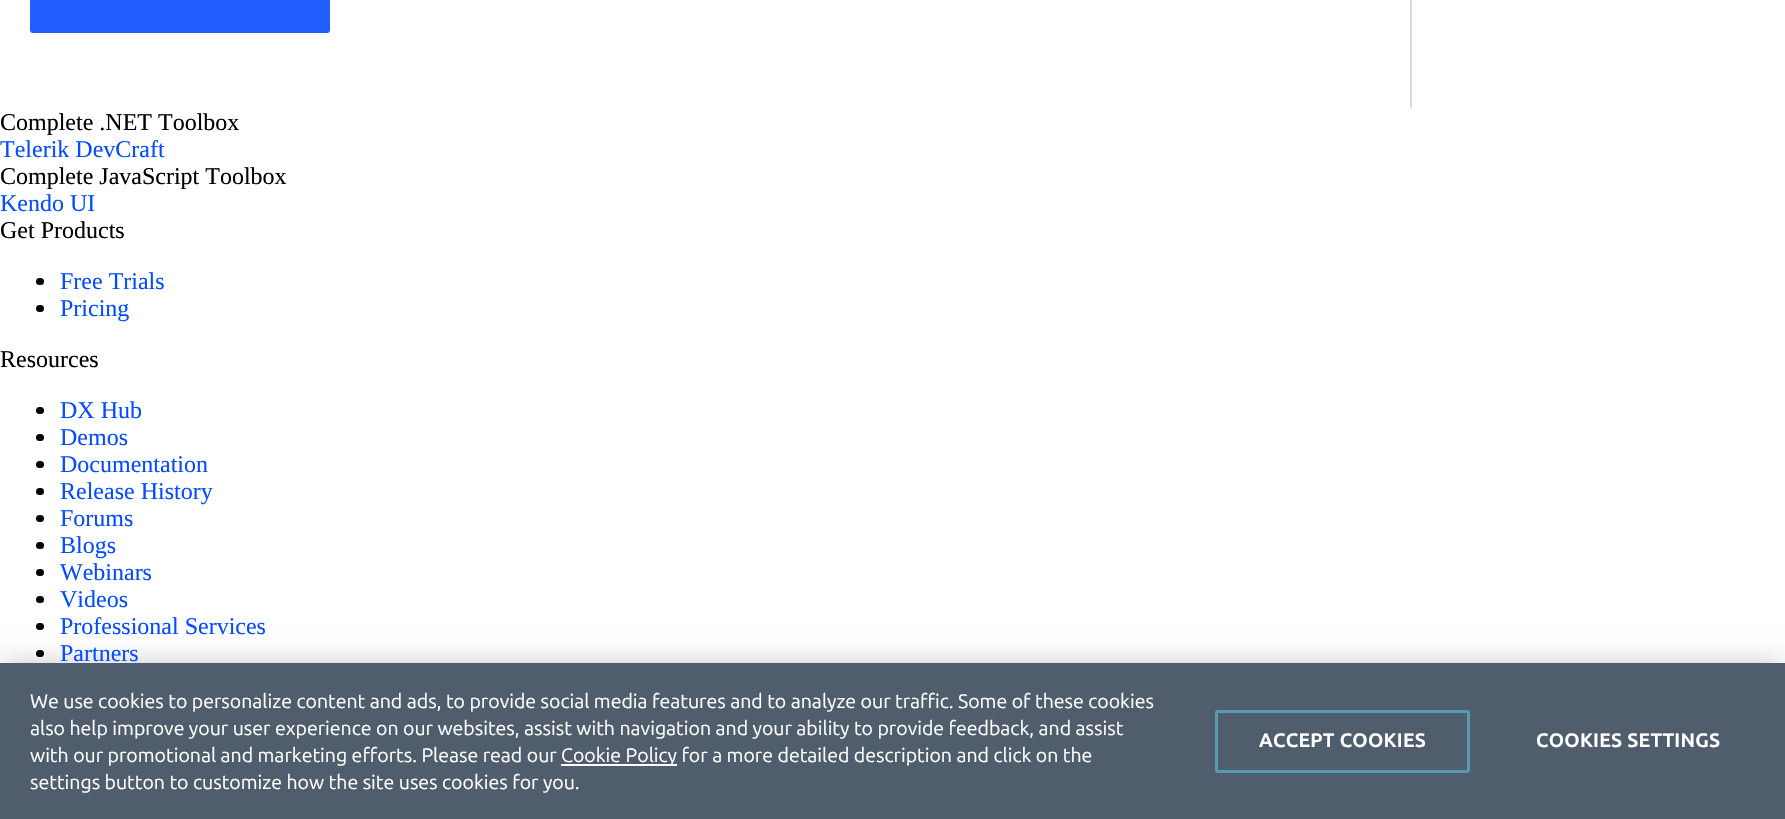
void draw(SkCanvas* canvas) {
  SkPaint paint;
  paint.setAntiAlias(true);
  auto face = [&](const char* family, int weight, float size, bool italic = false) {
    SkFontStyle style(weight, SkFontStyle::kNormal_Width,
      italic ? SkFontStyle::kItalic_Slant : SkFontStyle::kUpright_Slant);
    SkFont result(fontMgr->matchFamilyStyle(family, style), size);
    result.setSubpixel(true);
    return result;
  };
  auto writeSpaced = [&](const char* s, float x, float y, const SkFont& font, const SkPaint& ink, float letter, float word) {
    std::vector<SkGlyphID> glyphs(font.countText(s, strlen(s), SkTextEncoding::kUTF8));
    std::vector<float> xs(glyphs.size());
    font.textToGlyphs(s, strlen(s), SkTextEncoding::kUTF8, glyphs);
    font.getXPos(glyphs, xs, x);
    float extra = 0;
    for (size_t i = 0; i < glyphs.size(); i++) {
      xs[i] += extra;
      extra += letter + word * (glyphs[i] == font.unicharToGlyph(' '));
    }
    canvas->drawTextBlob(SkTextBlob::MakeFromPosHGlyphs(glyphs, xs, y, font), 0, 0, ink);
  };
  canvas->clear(0xffffffff);
  paint.setColor(0xff225eff);
  canvas->drawRoundRect(SkRect::MakeXYWH(30, -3, 300, 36), 3, 3, paint);
  paint.setColor(0xffd9d9d9);
  canvas->drawRect(SkRect::MakeXYWH(1410, 0, 2, 108), paint);
  paint.setColor(0xff000000);
  canvas->drawRoundRect(SkRect::MakeXYWH(36, 278, 8, 7), 3.5f, 3.5f, paint);
  canvas->drawRoundRect(SkRect::MakeXYWH(36, 305, 8, 7), 3.5f, 3.5f, paint);
  canvas->drawRoundRect(SkRect::MakeXYWH(36, 407, 8, 7), 3.5f, 3.5f, paint);
  canvas->drawRoundRect(SkRect::MakeXYWH(36, 434, 8, 7), 3.5f, 3.5f, paint);
  canvas->drawRoundRect(SkRect::MakeXYWH(36, 461, 8, 7), 3.5f, 3.5f, paint);
  canvas->drawRoundRect(SkRect::MakeXYWH(36, 488, 8, 7), 3.5f, 3.5f, paint);
  canvas->drawRoundRect(SkRect::MakeXYWH(36, 515, 8, 7), 3.5f, 3.5f, paint);
  canvas->drawRoundRect(SkRect::MakeXYWH(36, 542, 8, 7), 3.5f, 3.5f, paint);
  canvas->drawRoundRect(SkRect::MakeXYWH(36, 569, 8, 7), 3.5f, 3.5f, paint);
  canvas->drawRoundRect(SkRect::MakeXYWH(36, 596, 8, 7), 3.5f, 3.5f, paint);
  canvas->drawRoundRect(SkRect::MakeXYWH(36, 623, 8, 7), 3.5f, 3.5f, paint);
  canvas->drawRoundRect(SkRect::MakeXYWH(36, 650, 8, 7), 3.5f, 3.5f, paint);
  paint.setColor(0x33000000);
  paint.setMaskFilter(SkMaskFilter::MakeBlur(kNormal_SkBlurStyle, 13.5f));
  canvas->drawRect(SkRect::MakeXYWH(0, 663, 1785, 156), paint);
  paint.setMaskFilter(nullptr);
  paint.setColor(0xff4f5d6c);
  canvas->drawRect(SkRect::MakeXYWH(0, 663, 1785, 156), paint);
  paint.setColor(0xffffffff);
  canvas->drawRect(SkRect::MakeXYWH(561, 764, 116, 2), paint);
  paint.setStroke(true);
  paint.setStrokeWidth(3);
  paint.setColor(0xff5699b6);
  canvas->drawRoundRect(SkRect::MakeXYWH(1216.5f, 711.5f, 252, 60), 1.5f, 1.5f, paint);
  auto f0 = face("Liberation Serif", 400, 24);
  paint.setStroke(false);
  paint.setColor(0xff000000);
  canvas->drawString("Complete .NET Toolbox", 0, 130, f0, paint);
  paint.setColor(0xff054bff);
  canvas->drawString("Telerik DevCraft", 0, 157, f0, paint);
  paint.setColor(0xff000000);
  canvas->drawString("Complete JavaScript Toolbox", 0, 184, f0, paint);
  paint.setColor(0xff054bff);
  canvas->drawString("Kendo UI", 0, 211, f0, paint);
  paint.setColor(0xff000000);
  canvas->drawString("Get Products", 0, 238, f0, paint);
  paint.setColor(0xff054bff);
  canvas->drawString("Free Trials", 60, 289, f0, paint);
  canvas->drawString("Pricing", 60, 316, f0, paint);
  paint.setColor(0xff000000);
  canvas->drawString("Resources", 0, 367, f0, paint);
  paint.setColor(0xff054bff);
  {
    const struct { const char* s; float x, y; } items[] = {
      {"DX Hub", 60, 418},
      {"Demos", 60, 445},
      {"Documentation", 60, 472},
      {"Release History", 60, 499},
      {"Forums", 60, 526},
      {"Blogs", 60, 553},
      {"Webinars", 60, 580},
      {"Videos", 60, 607},
      {"Professional Services", 60, 634},
      {"Partners", 60, 661},
    };
    for (auto [s, x, y] : items) {
      canvas->drawString(s, x, y, f0, paint);
    }
  }
  auto f1 = face("Ubuntu", 400, 19.5f);
  paint.setColor(0xffffffff);
  {
    const struct { const char* s; float x, y; } items[] = {
      {"We use cookies to personalize content and ads, to provide social media features and to analyze our traffic. Some of these cookies", 30, 708},
      {"also help improve your user experience on our websites, assist with navigation and your ability to provide feedback, and assist", 30, 735},
      {"with our promotional and marketing efforts. Please read our", 30, 762},
      {"Cookie Policy for a more detailed description and click on the", 561, 762},
      {"settings button to customize how the site uses cookies for you.", 30, 789},
    };
    for (auto [s, x, y] : items) {
      canvas->drawString(s, x, y, f1, paint);
    }
  }
  auto f2 = face("Ubuntu", 700, 19.5f);
  writeSpaced("ACCEPT COOKIES", 1259, 747, f2, paint, 0.25f, 0);
  writeSpaced("COOKIES SETTINGS", 1536, 747, f2, paint, 0.25f, 0);
}
